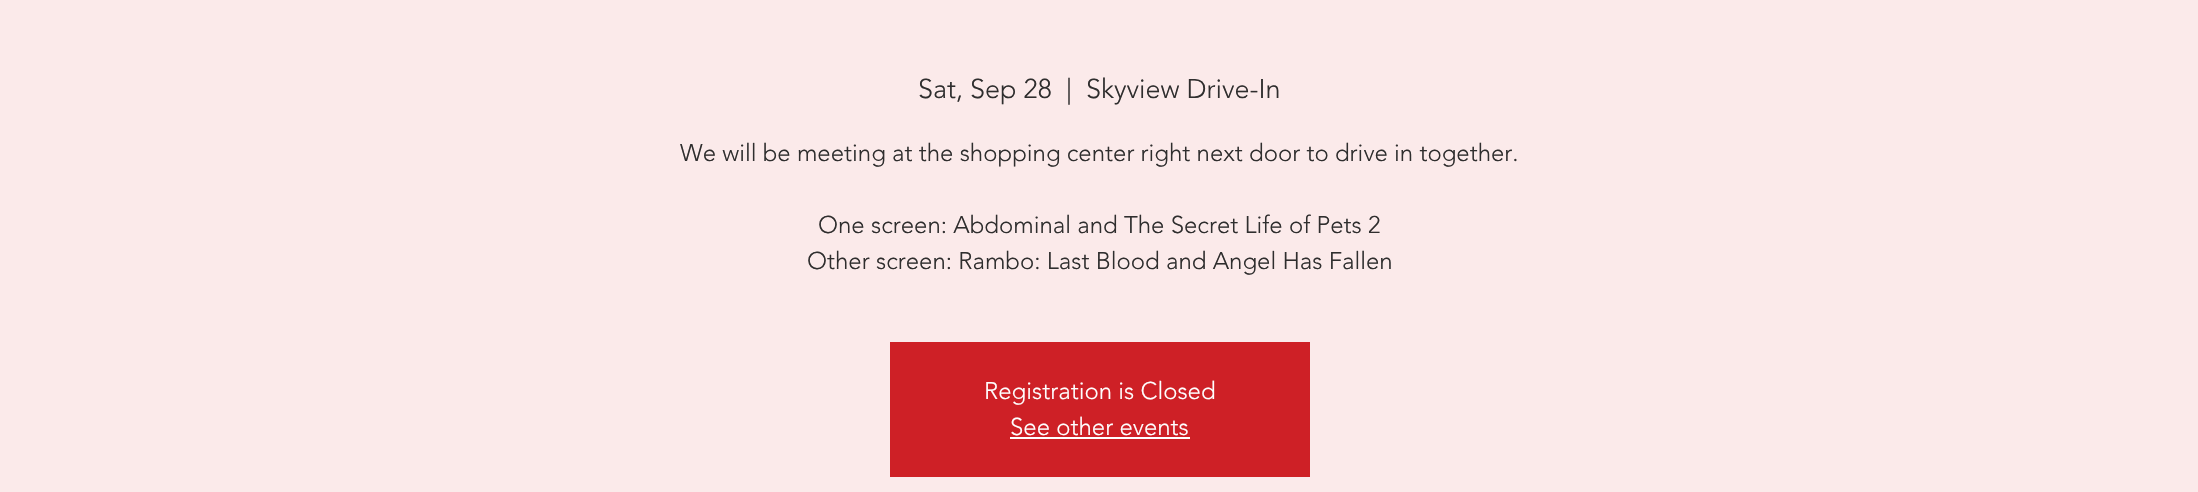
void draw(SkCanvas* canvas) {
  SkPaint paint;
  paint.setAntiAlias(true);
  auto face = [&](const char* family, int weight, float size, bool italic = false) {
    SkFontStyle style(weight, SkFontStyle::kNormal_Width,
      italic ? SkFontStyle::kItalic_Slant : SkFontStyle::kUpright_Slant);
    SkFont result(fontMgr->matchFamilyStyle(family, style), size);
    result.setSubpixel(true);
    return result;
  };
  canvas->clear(0xfffbeaea);
  paint.setColor(0xffce2026);
  canvas->drawRect(SkRect::MakeXYWH(890, 342, 420, 135), paint);
  paint.setColor(0xffffffff);
  canvas->drawRect(SkRect::MakeXYWH(1010, 437, 180, 2), paint);
  auto f0 = face("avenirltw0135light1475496", 300, 27);
  paint.setColor(0xff2f2e2e);
  {
    const struct { const char* s; float x, y; } items[] = {
      {"Sat, Sep 28", 918, 98},
      {"|", 1066, 98},
      {"Skyview Drive-In", 1086, 98},
    };
    for (auto [s, x, y] : items) {
      canvas->drawString(s, x, y, f0, paint);
    }
  }
  auto f1 = face("avenirltw0135light1475496", 300, 24);
  {
    const struct { const char* s; float x, y; } items[] = {
      {"We will be meeting at the shopping center right next door to drive in together.", 680, 161},
      {"One screen: Abdominal and The Secret Life of Pets 2", 818, 233},
      {"Other screen: Rambo: Last Blood and Angel Has Fallen", 807, 269},
    };
    for (auto [s, x, y] : items) {
      canvas->drawString(s, x, y, f1, paint);
    }
  }
  paint.setColor(0xffffffff);
  canvas->drawString("Registration is Closed", 984, 399, f1, paint);
  canvas->drawString("See other events", 1010, 435, f1, paint);
}
